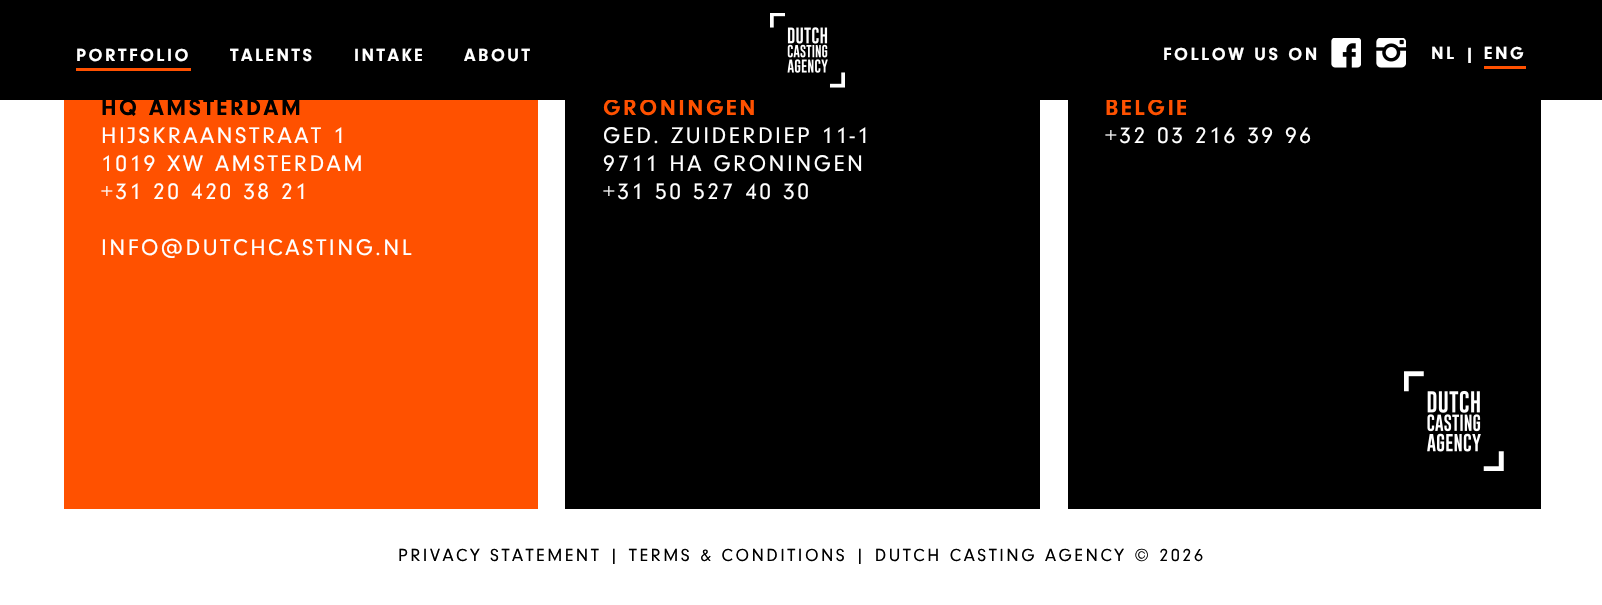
void draw(SkCanvas* canvas) {
  SkPaint paint;
  paint.setAntiAlias(true);
  auto face = [&](const char* family, int weight, float size, bool italic = false) {
    SkFontStyle style(weight, SkFontStyle::kNormal_Width,
      italic ? SkFontStyle::kItalic_Slant : SkFontStyle::kUpright_Slant);
    SkFont result(fontMgr->matchFamilyStyle(family, style), size);
    result.setSubpixel(true);
    return result;
  };
  auto writeSpaced = [&](const char* s, float x, float y, const SkFont& font, const SkPaint& ink, float letter, float word) {
    std::vector<SkGlyphID> glyphs(font.countText(s, strlen(s), SkTextEncoding::kUTF8));
    std::vector<float> xs(glyphs.size());
    font.textToGlyphs(s, strlen(s), SkTextEncoding::kUTF8, glyphs);
    font.getXPos(glyphs, xs, x);
    float extra = 0;
    for (size_t i = 0; i < glyphs.size(); i++) {
      xs[i] += extra;
      extra += letter + word * (glyphs[i] == font.unicharToGlyph(' '));
    }
    canvas->drawTextBlob(SkTextBlob::MakeFromPosHGlyphs(glyphs, xs, y, font), 0, 0, ink);
  };
  auto paste = [&](const char* path, float x, float y, float w, float h) {
    auto image = SkImages::DeferredFromEncodedData(SkData::MakeFromFileName(path));
    canvas->drawImageRect(image, SkRect::MakeXYWH(x, y, w, h), SkSamplingOptions());
  };
  canvas->clear(0xffffffff);
  {
    const struct { float x, y, w, h; SkColor color; } items[] = {
      {64, 100, 474, 409, 0xffff5100},
      {565, 100, 475, 409, 0xff000000},
      {1068, 100, 473, 409, 0xff000000},
    };
    for (auto [x, y, w, h, color] : items) {
      paint.setColor(color);
      canvas->drawRect(SkRect::MakeXYWH(x, y, w, h), paint);
    }
  }
  paste("img/4.png", 1404, 371, 100, 100);
  auto f0 = face("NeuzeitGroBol", 400, 23.4f);
  writeSpaced("HQ AMSTERDAM", 101, 115, f0, paint, 2.5f, 0);
  auto f1 = face("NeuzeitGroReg", 400, 23.4f);
  paint.setColor(0xffffffff);
  {
    const struct { const char* s; float x, y; } items[] = {
      {"HIJSKRAANSTRAAT 1", 101, 143},
      {"1019 XW AMSTERDAM", 101, 171},
      {"+31 20 420 38 21", 101, 199},
      {"INFO@DUTCHCASTING.NL", 101, 255},
    };
    for (auto [s, x, y] : items) {
      writeSpaced(s, x, y, f1, paint, 2.5f, 0);
    }
  }
  paint.setColor(0xffff5100);
  writeSpaced("GRONINGEN", 603, 115, f0, paint, 2.5f, 0);
  paint.setColor(0xffffffff);
  {
    const struct { const char* s; float x, y; } items[] = {
      {"GED. ZUIDERDIEP 11-1", 603, 143},
      {"9711 HA GRONINGEN", 603, 171},
      {"+31 50 527 40 30", 603, 199},
    };
    for (auto [s, x, y] : items) {
      writeSpaced(s, x, y, f1, paint, 2.5f, 0);
    }
  }
  paint.setColor(0xffff5100);
  writeSpaced("BELGIË", 1105, 115, f0, paint, 2.5f, 0);
  paint.setColor(0xff000000);
  canvas->drawRect(SkRect::MakeXYWH(0, 0, 1602, 100), paint);
  paste("img/1.png", 770, 13, 75, 75);
  auto f2 = face("NeuzeitGroBol", 400, 18.2f);
  paint.setColor(0xffffffff);
  {
    const struct { const char* s; float x, y; } items[] = {
      {"ABOUT", 464, 61},
      {"INTAKE", 354, 61},
      {"TALENTS", 230, 61},
      {"PORTFOLIO", 76, 61},
    };
    for (auto [s, x, y] : items) {
      writeSpaced(s, x, y, f2, paint, 2.5f, 0);
    }
  }
  paint.setColor(0xffff5100);
  canvas->drawRect(SkRect::MakeXYWH(76, 68, 115, 3), paint);
  paint.setColor(0xffffffff);
  writeSpaced("ENG", 1484, 59, f2, paint, 2.5f, 0);
  paint.setColor(0xffff5100);
  canvas->drawRect(SkRect::MakeXYWH(1484, 66, 42, 3), paint);
  paint.setColor(0xffffffff);
  writeSpaced("|", 1465, 60, f2, paint, 2.5f, 0);
  writeSpaced("NL", 1431, 59, f2, paint, 2.5f, 0);
  paste("img/3.png", 1376, 38, 30, 30);
  paste("img/2.png", 1331, 38, 30, 30);
  writeSpaced("FOLLOW US ON", 1163, 60, f2, paint, 2.5f, 0);
  writeSpaced("+32 03 216 39 96", 1105, 143, f1, paint, 2.5f, 0);
  auto f3 = face("NeuzeitGroReg", 400, 18.2f);
  paint.setColor(0xff000000);
  writeSpaced("PRIVACY STATEMENT | TERMS & CONDITIONS | DUTCH CASTING AGENCY © 2026", 398, 561, f3, paint, 2.5f, 0);
}
